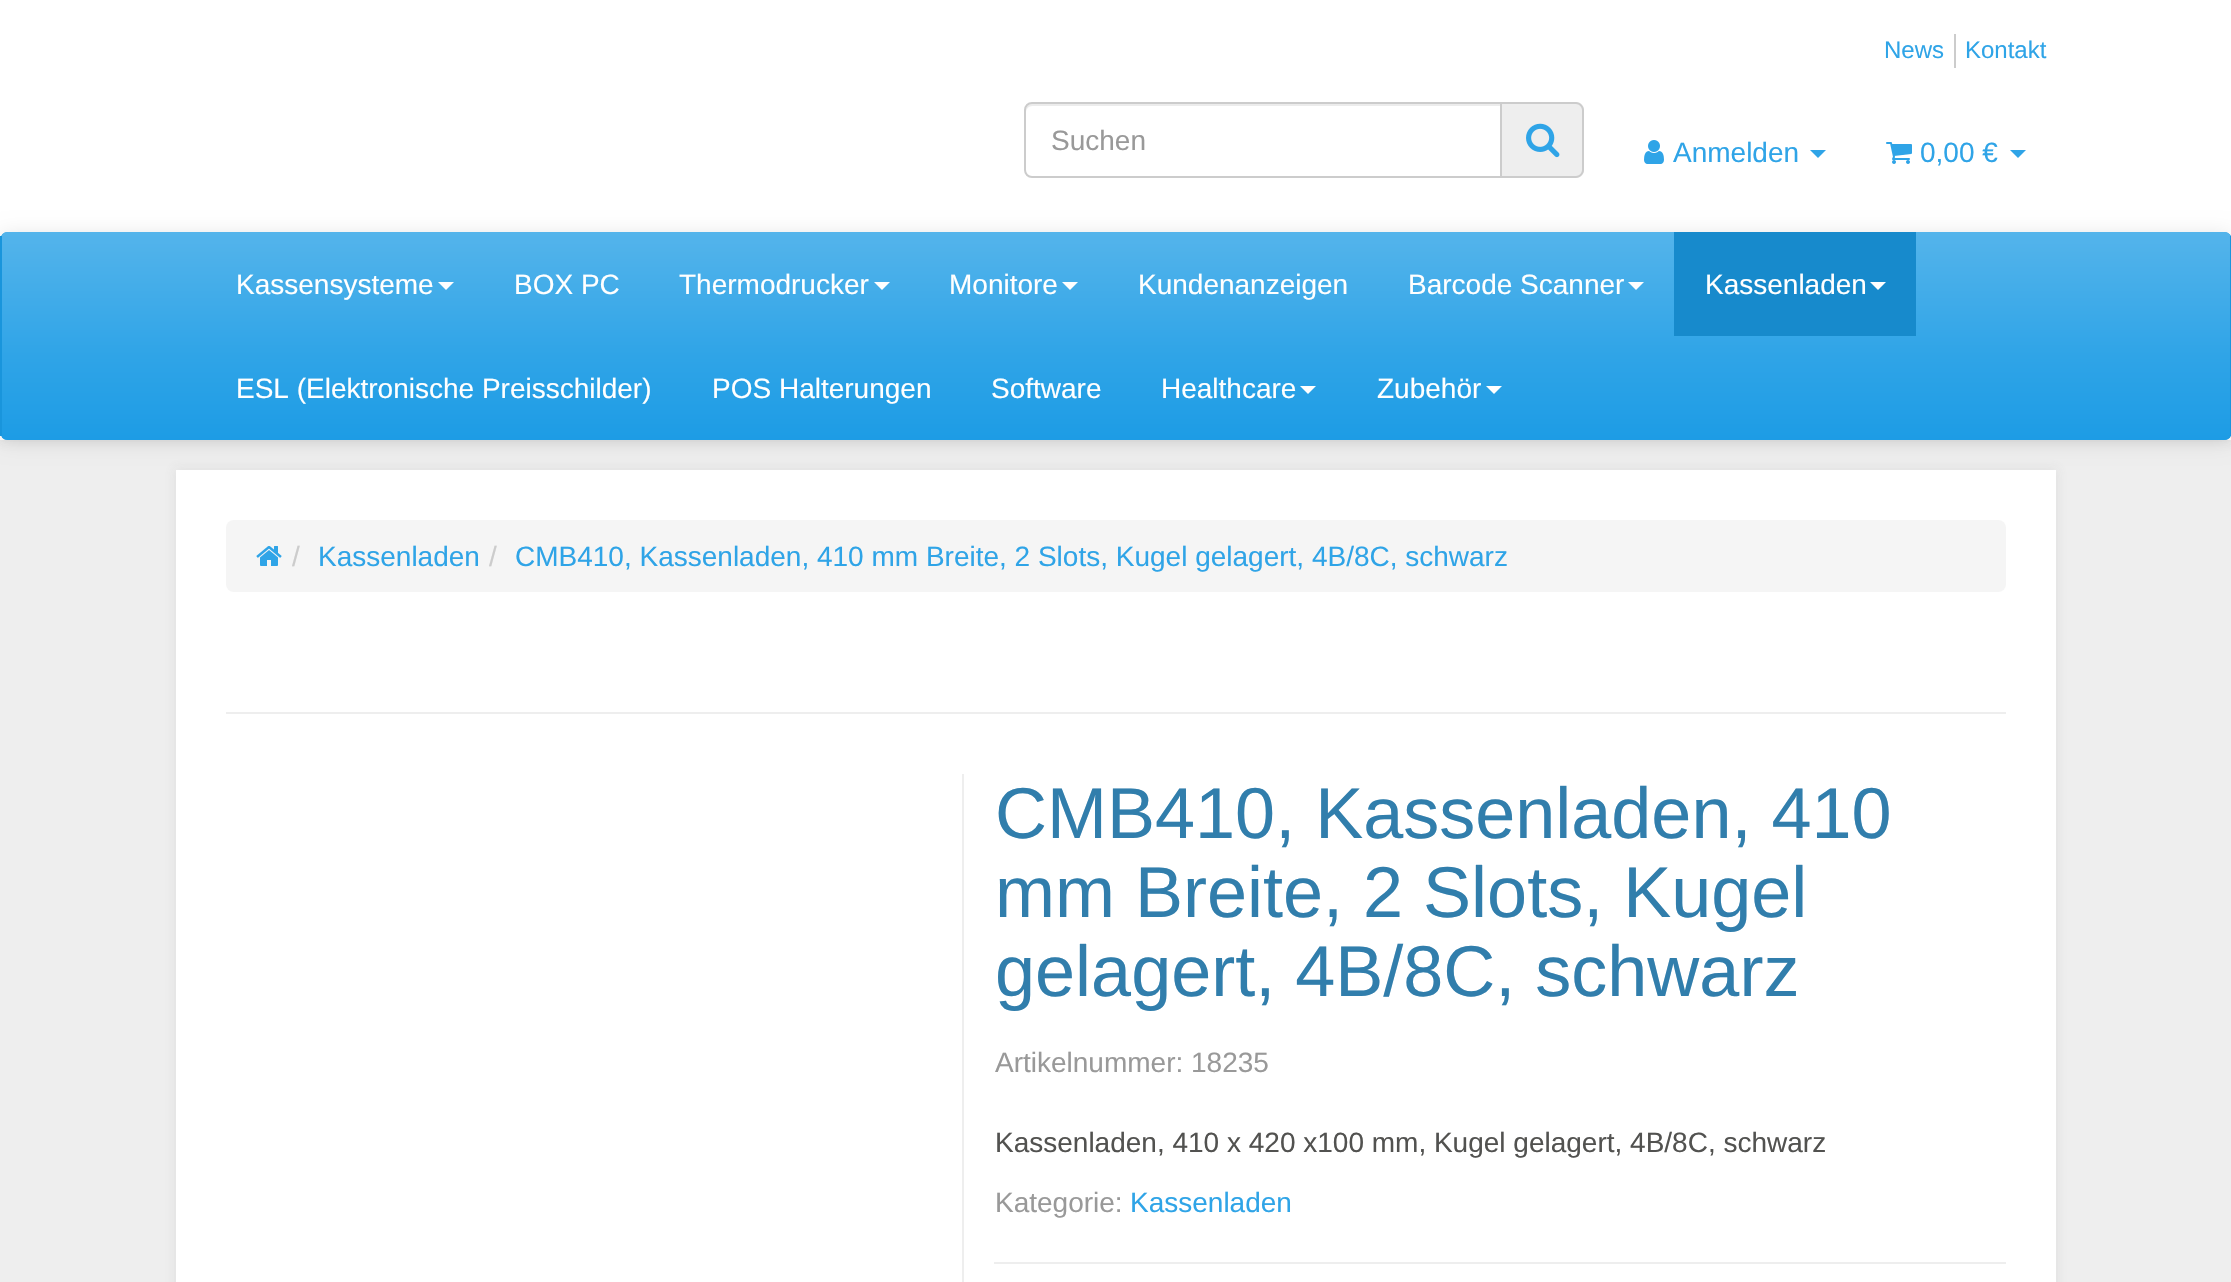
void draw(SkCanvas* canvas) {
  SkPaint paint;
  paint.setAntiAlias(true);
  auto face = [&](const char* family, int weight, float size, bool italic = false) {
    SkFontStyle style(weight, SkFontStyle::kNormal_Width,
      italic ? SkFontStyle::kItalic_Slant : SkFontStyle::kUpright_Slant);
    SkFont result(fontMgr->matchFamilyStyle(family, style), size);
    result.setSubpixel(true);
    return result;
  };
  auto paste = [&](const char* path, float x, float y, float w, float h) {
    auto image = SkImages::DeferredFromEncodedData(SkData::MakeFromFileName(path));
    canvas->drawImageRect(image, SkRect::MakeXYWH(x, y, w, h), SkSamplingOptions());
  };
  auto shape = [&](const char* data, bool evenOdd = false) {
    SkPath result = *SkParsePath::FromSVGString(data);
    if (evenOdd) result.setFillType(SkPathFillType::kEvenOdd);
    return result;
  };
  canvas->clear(0xffeeeeee);
  paint.setColor(0x1a6a6a6a);
  paint.setMaskFilter(SkMaskFilter::MakeBlur(kNormal_SkBlurStyle, 5));
  canvas->drawRect(SkRect::MakeXYWH(-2, -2, 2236, 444), paint);
  paint.setMaskFilter(nullptr);
  paint.setColor(0xffffffff);
  canvas->drawRect(SkRect::MakeXYWH(0, 0, 2231, 440), paint);
  paint.setColor(0xffcccccc);
  canvas->drawRect(SkRect::MakeXYWH(1954, 34, 2, 34), paint);
  paint.setColor(0xffececec);
  canvas->drawPath(shape("M1032 106H1500V104H1032C1027 104 1026 108 1026 112C1026 109 1029 106 1032 106Z"), paint);
  paint.setStroke(true);
  paint.setStrokeWidth(2);
  paint.setColor(0xffcccccc);
  canvas->drawPath(shape("M1032 103H1501V177H1032C1028 177 1025 174 1025 170V110C1025 106 1028 103 1032 103Z"), paint);
  paint.setStroke(false);
  paint.setColor(0xffeeeeee);
  canvas->drawPath(shape("M1502 102H1576C1580.5 102 1584 105.5 1584 110V170C1584 174.5 1580.5 178 1576 178H1502Z"), paint);
  paint.setColor(0xffcccccc);
  canvas->drawPath(shape("M1502 102H1576C1580 102 1584 106 1584 110V170C1584 174 1580 178 1576 178H1502ZM1502 104H1576C1579 104 1582 107 1582 110V170C1582 173 1579 176 1576 176H1502Z", true), paint);
  paste("img/1.png", 1526, 123, 34, 35);
  paste("img/2.png", 1644, 140, 20, 24);
  paint.setColor(0xff2fa4e7);
  canvas->drawPath(shape("M1810 150H1826L1818 158Z"), paint);
  paste("img/3.png", 1886, 142, 26, 22);
  canvas->drawPath(shape("M2010 150H2026L2018 158Z"), paint);
  paint.setColor(0x1a6a6a6a);
  paint.setMaskFilter(SkMaskFilter::MakeBlur(kNormal_SkBlurStyle, 5));
  canvas->drawRect(SkRect::MakeXYWH(174, 468, 1884, 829), paint);
  paint.setMaskFilter(nullptr);
  paint.setColor(0xffffffff);
  canvas->drawRect(SkRect::MakeXYWH(176, 470, 1880, 812), paint);
  paint.setColor(0x1a000000);
  paint.setMaskFilter(SkMaskFilter::MakeBlur(kNormal_SkBlurStyle, 10));
  canvas->drawRoundRect(SkRect::MakeXYWH(0, 234, 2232, 208), 8, 8, paint);
  paint.setMaskFilter(nullptr);
  paint.setColor(0xff2fa4e7);
  canvas->drawRoundRect(SkRect::MakeXYWH(0, 232, 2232, 208), 8, 8, paint);
  canvas->save();
  canvas->clipPath(shape("M8 232H2224C2228.5 232 2232 235.5 2232 240V432C2232 436.5 2228.5 440 2224 440H8C3.5 440 0 436.5 0 432V240C0 235.5 3.5 232 8 232Z"), true);
  {
    const SkColor colors[] = {0xff54b4eb, 0xff2fa4e7, 0xff1d9ce5};
    const float stops[] = {0, 0.6f, 1};
    const SkPoint ends[] = {{1116, 232}, {1116, 440}};
    paint.setShader(SkGradientShader::MakeLinear(ends, colors, stops, 3, SkTileMode::kClamp));
    paint.setAlpha(255);
  }
  canvas->drawRect(SkRect::MakeXYWH(2, 232, 2228, 208), paint);
  canvas->restore();
  paint.setShader(nullptr);
  paint.setColor(0xff1995dc);
  canvas->drawRect(SkRect::MakeXYWH(2230, 236, 1, 200), paint);
  canvas->drawRect(SkRect::MakeXYWH(0, 236, 2, 200), paint);
  paint.setColor(0xffffffff);
  canvas->drawPath(shape("M438 282H454L446 290Z"), paint);
  canvas->drawPath(shape("M874 282H890L882 290Z"), paint);
  canvas->drawPath(shape("M1062 282H1078L1070 290Z"), paint);
  canvas->drawPath(shape("M1628 282H1644L1636 290Z"), paint);
  paint.setColor(0xff178acc);
  canvas->drawRect(SkRect::MakeXYWH(1674, 232, 242, 104), paint);
  paint.setColor(0xffffffff);
  canvas->drawPath(shape("M1870 282H1886L1878 290Z"), paint);
  canvas->drawPath(shape("M1300 386H1316L1308 394Z"), paint);
  canvas->drawPath(shape("M1486 386H1502L1494 394Z"), paint);
  paint.setColor(0xfff5f5f5);
  canvas->drawRoundRect(SkRect::MakeXYWH(226, 520, 1780, 72), 8, 8, paint);
  paste("img/4.png", 256, 546, 26, 20);
  {
    const struct { float x, y, w, h; SkColor color; } items[] = {
      {226, 712, 1780, 2, 0xffeeeeee},
      {962, 774, 2, 508, 0xffeeeeee},
      {994, 1262, 1012, 2, 0xffeeeeee},
    };
    for (auto [x, y, w, h, color] : items) {
      paint.setColor(color);
      canvas->drawRect(SkRect::MakeXYWH(x, y, w, h), paint);
    }
  }
  auto f0 = face("Liberation Sans", 400, 24);
  paint.setColor(0xff2fa4e7);
  canvas->drawString("News", 1884, 58, f0, paint);
  canvas->drawString("Kontakt", 1965, 58, f0, paint);
  auto f1 = face("Liberation Sans", 400, 28);
  paint.setColor(0xff999999);
  canvas->drawString("Suchen", 1051, 150, f1, paint);
  paint.setColor(0xff2fa4e7);
  canvas->drawString("Anmelden", 1673, 162, f1, paint);
  canvas->drawString("0,00 €", 1920, 162, f1, paint);
  paint.setColor(0xffffffff);
  {
    const struct { const char* s; float x, y; } items[] = {
      {"Kassensysteme", 236, 294},
      {"BOX PC", 514, 294},
      {"Thermodrucker", 679, 294},
      {"Monitore", 949, 294},
      {"Kundenanzeigen", 1138, 294},
      {"Barcode Scanner", 1408, 294},
      {"Kassenladen", 1705, 294},
      {"ESL (Elektronische Preisschilder)", 236, 398},
      {"POS Halterungen", 712, 398},
      {"Software", 991, 398},
      {"Healthcare", 1161, 398},
      {"Zubehör", 1377, 398},
    };
    for (auto [s, x, y] : items) {
      canvas->drawString(s, x, y, f1, paint);
    }
  }
  paint.setColor(0xffcccccc);
  canvas->drawString("/", 292, 566, f1, paint);
  paint.setColor(0xff2fa4e7);
  canvas->drawString("Kassenladen", 318, 566, f1, paint);
  paint.setColor(0xffcccccc);
  canvas->drawString("/", 489, 566, f1, paint);
  paint.setColor(0xff2fa4e7);
  canvas->drawString("CMB410, Kassenladen, 410 mm Breite, 2 Slots, Kugel gelagert, 4B/8C, schwarz", 515, 566, f1, paint);
  auto f2 = face("Liberation Sans", 400, 72);
  paint.setColor(0xff317eac);
  {
    const struct { const char* s; float x, y; } items[] = {
      {"CMB410, Kassenladen, 410", 995, 838},
      {"mm Breite, 2 Slots, Kugel", 995, 917},
      {"gelagert, 4B/8C, schwarz", 995, 996},
    };
    for (auto [s, x, y] : items) {
      canvas->drawString(s, x, y, f2, paint);
    }
  }
  paint.setColor(0xff999999);
  canvas->drawString("Artikelnummer: 18235", 995, 1072, f1, paint);
  paint.setColor(0xff525250);
  canvas->drawString("Kassenladen, 410 x 420 x100 mm, Kugel gelagert, 4B/8C, schwarz", 995, 1152, f1, paint);
  paint.setColor(0xff999999);
  canvas->drawString("Kategorie:", 995, 1212, f1, paint);
  paint.setColor(0xff2fa4e7);
  canvas->drawString("Kassenladen", 1130, 1212, f1, paint);
}
